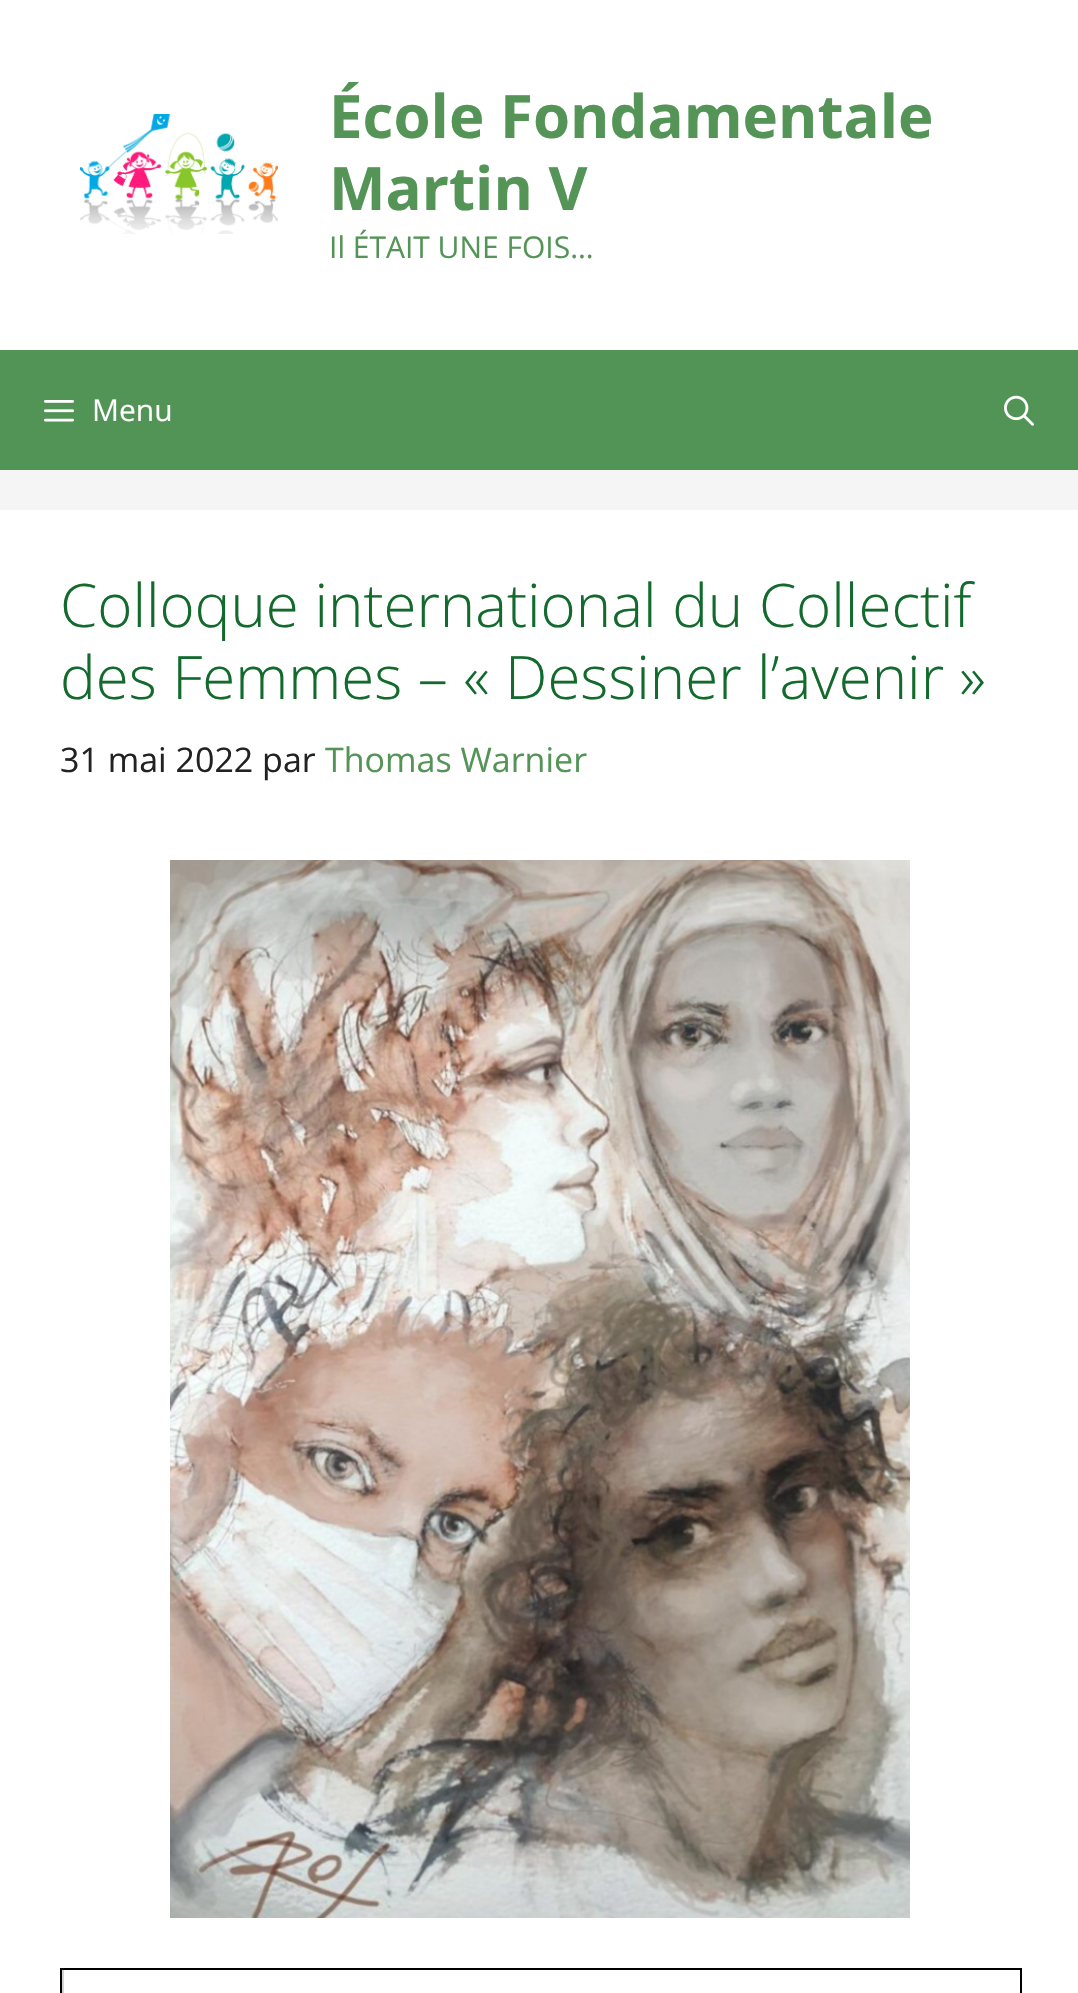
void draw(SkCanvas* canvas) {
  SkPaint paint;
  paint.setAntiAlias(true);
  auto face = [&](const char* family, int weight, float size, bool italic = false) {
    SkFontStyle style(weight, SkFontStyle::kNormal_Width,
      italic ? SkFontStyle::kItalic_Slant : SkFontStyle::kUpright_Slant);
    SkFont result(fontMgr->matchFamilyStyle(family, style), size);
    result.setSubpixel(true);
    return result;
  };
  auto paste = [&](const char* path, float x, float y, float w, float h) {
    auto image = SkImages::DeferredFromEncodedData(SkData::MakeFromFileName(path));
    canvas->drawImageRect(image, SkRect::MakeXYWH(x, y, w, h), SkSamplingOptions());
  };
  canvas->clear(0xfff5f5f5);
  paint.setColor(0xffffffff);
  canvas->drawRect(SkRect::MakeXYWH(0, 0, 1078, 350), paint);
  paste("img/1.png", 80, 114, 198, 120);
  paint.setColor(0xff529356);
  canvas->drawRect(SkRect::MakeXYWH(0, 350, 1078, 120), paint);
  paste("img/2.png", 44, 400, 30, 22);
  paste("img/3.png", 1004, 395, 30, 31);
  paint.setColor(0xffffffff);
  canvas->drawRect(SkRect::MakeXYWH(0, 510, 1078, 1483), paint);
  paste("img/4.png", 170, 860, 740, 1058);
  paint.setColor(0xffd3d3d3);
  canvas->drawRect(SkRect::MakeXYWH(62, 1970, 2, 23), paint);
  paint.setStroke(true);
  paint.setStrokeWidth(2);
  paint.setColor(0xff000000);
  canvas->drawRect(SkRect::MakeXYWH(61, 1969, 960, 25), paint);
  auto f0 = face("Open Sans", 700, 60);
  paint.setStroke(false);
  paint.setColor(0xff549557);
  canvas->drawString("École Fondamentale", 329, 138, f0, paint);
  canvas->drawString("Martin V", 329, 210, f0, paint);
  auto f1 = face("Open Sans", 400, 30);
  canvas->drawString("Il ÉTAIT UNE FOIS…", 329, 258, f1, paint);
  paint.setColor(0xffffffff);
  canvas->drawString("Menu", 92, 421, f1, paint);
  auto f2 = face("Open Sans", 300, 60);
  paint.setColor(0xff126a2c);
  canvas->drawString("Colloque international du Collectif", 60, 627, f2, paint);
  canvas->drawString("des Femmes – « Dessiner l’avenir »", 60, 699, f2, paint);
  auto f3 = face("Open Sans", 400, 34);
  paint.setColor(0xff222222);
  canvas->drawString("31 mai 2022 par", 60, 772, f3, paint);
  paint.setColor(0xff549557);
  canvas->drawString("Thomas Warnier", 325, 772, f3, paint);
}
